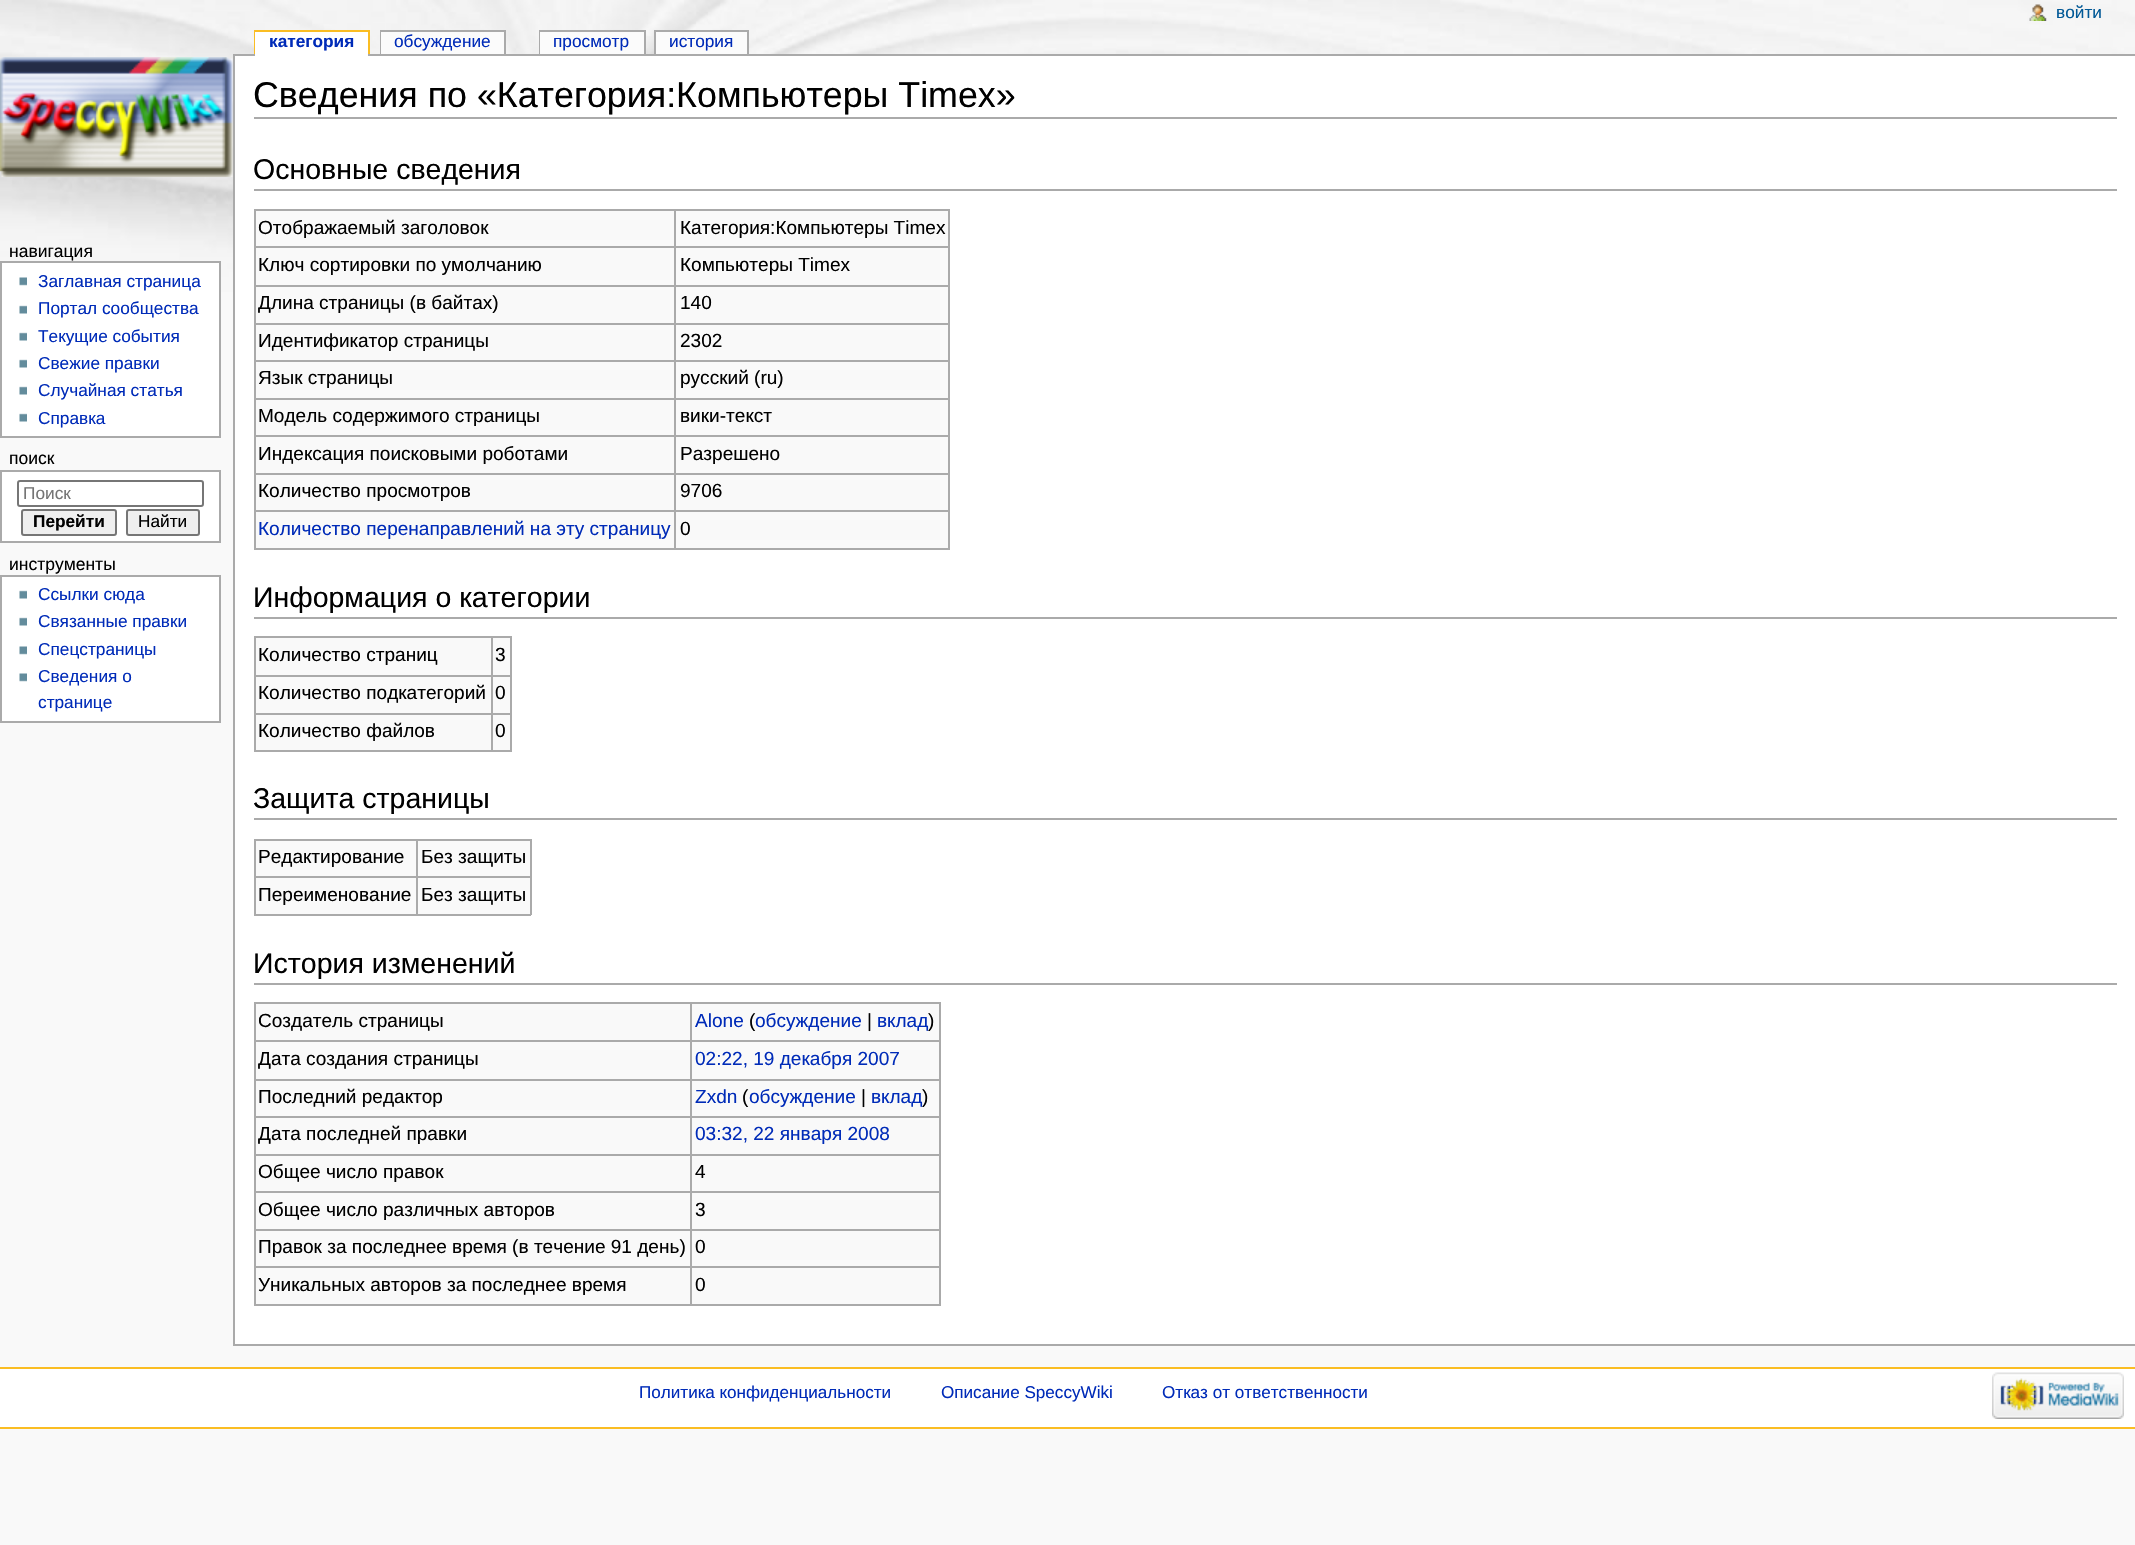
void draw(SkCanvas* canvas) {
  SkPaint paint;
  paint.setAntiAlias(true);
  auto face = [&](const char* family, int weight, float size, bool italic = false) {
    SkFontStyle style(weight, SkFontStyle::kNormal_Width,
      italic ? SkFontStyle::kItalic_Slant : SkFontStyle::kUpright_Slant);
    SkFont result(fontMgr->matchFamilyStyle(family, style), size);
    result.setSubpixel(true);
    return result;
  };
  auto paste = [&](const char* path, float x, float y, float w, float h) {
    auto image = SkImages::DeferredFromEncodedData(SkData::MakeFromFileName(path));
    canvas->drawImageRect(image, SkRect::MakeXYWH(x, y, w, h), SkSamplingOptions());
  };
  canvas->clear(0xfff9f9f9);
  paste("img/1.png", 0, 0, 2135, 292);
  paste("img/2.png", 2029, 4, 18, 17);
  {
    const struct { float x, y, w, h; SkColor color; } items[] = {
      {254, 30, 115, 2, 0xfffabd23},
      {368, 30, 2, 24, 0xfffabd23},
      {254, 30, 2, 24, 0xfffabd23},
      {233, 54, 1902, 2, 0xffaaaaaa},
      {255, 32, 113, 24, 0xffffffff},
      {380, 30, 126, 2, 0xffaaaaaa},
      {504, 30, 2, 24, 0xffaaaaaa},
      {380, 30, 2, 24, 0xffaaaaaa},
      {381, 32, 123, 22, 0xfffbfbfb},
      {539, 30, 106, 2, 0xffaaaaaa},
      {644, 30, 2, 24, 0xffaaaaaa},
      {539, 30, 2, 24, 0xffaaaaaa},
      {540, 32, 104, 22, 0xfffbfbfb},
      {654, 30, 95, 2, 0xffaaaaaa},
      {747, 30, 2, 24, 0xffaaaaaa},
      {654, 30, 2, 24, 0xffaaaaaa},
      {656, 32, 91, 22, 0xfffbfbfb},
    };
    for (auto [x, y, w, h, color] : items) {
      paint.setColor(color);
      canvas->drawRect(SkRect::MakeXYWH(x, y, w, h), paint);
    }
  }
  paste("img/3.png", 0, 57, 233, 120);
  paint.setColor(0xffffffff);
  canvas->drawRect(SkRect::MakeXYWH(1, 262, 219, 175), paint);
  paint.setStroke(true);
  paint.setStrokeWidth(2);
  paint.setColor(0xffaaaaaa);
  canvas->drawRect(SkRect::MakeXYWH(1, 262, 219, 175), paint);
  paste("img/4.png", 19, 277, 8, 9);
  paste("img/5.png", 19, 305, 8, 9);
  paste("img/5.png", 19, 332, 8, 9);
  paste("img/5.png", 19, 359, 8, 9);
  paste("img/5.png", 19, 386, 8, 9);
  paste("img/5.png", 19, 413, 8, 9);
  paint.setStroke(false);
  paint.setColor(0xffffffff);
  canvas->drawRect(SkRect::MakeXYWH(1, 471, 219, 71), paint);
  paint.setStroke(true);
  paint.setColor(0xffaaaaaa);
  canvas->drawRect(SkRect::MakeXYWH(1, 471, 219, 71), paint);
  paint.setColor(0xff767676);
  canvas->drawRoundRect(SkRect::MakeXYWH(18, 481, 185, 25), 2, 2, paint);
  paint.setStroke(false);
  paint.setColor(0xffefefef);
  canvas->drawRoundRect(SkRect::MakeXYWH(22, 510, 94, 25), 2, 2, paint);
  paint.setStroke(true);
  paint.setColor(0xff767676);
  canvas->drawRoundRect(SkRect::MakeXYWH(22, 510, 94, 25), 2, 2, paint);
  paint.setStroke(false);
  paint.setColor(0xffefefef);
  canvas->drawRoundRect(SkRect::MakeXYWH(127, 510, 72, 25), 2, 2, paint);
  paint.setStroke(true);
  paint.setColor(0xff767676);
  canvas->drawRoundRect(SkRect::MakeXYWH(127, 510, 72, 25), 2, 2, paint);
  paint.setStroke(false);
  paint.setColor(0xffffffff);
  canvas->drawRect(SkRect::MakeXYWH(1, 576, 219, 146), paint);
  paint.setStroke(true);
  paint.setColor(0xffaaaaaa);
  canvas->drawRect(SkRect::MakeXYWH(1, 576, 219, 146), paint);
  paste("img/5.png", 19, 590, 8, 9);
  paste("img/5.png", 19, 617, 8, 9);
  paste("img/4.png", 19, 646, 8, 9);
  paste("img/4.png", 19, 673, 8, 9);
  paint.setStroke(false);
  {
    const struct { float x, y, w, h; SkColor color; } items[] = {
      {235, 56, 1900, 1288, 0xffffffff},
      {233, 1344, 1902, 2, 0xffaaaaaa},
      {233, 54, 2, 1292, 0xffaaaaaa},
      {254, 117, 1863, 2, 0xffaaaaaa},
      {254, 189, 1863, 2, 0xffaaaaaa},
      {256, 211, 692, 337, 0xfff9f9f9},
      {254, 209, 696, 2, 0xffaaaaaa},
      {948, 209, 2, 340, 0xffaaaaaa},
      {254, 548, 696, 2, 0xffaaaaaa},
      {254, 209, 2, 340, 0xffaaaaaa},
      {674, 246, 276, 2, 0xffaaaaaa},
      {674, 285, 276, 2, 0xffaaaaaa},
      {674, 323, 276, 2, 0xffaaaaaa},
      {674, 360, 276, 2, 0xffaaaaaa},
      {674, 398, 276, 2, 0xffaaaaaa},
      {674, 435, 276, 2, 0xffaaaaaa},
      {674, 473, 276, 2, 0xffaaaaaa},
      {674, 510, 276, 2, 0xffaaaaaa},
      {674, 510, 2, 39, 0xffaaaaaa},
      {254, 510, 421, 2, 0xffaaaaaa},
      {674, 473, 2, 39, 0xffaaaaaa},
      {254, 473, 421, 2, 0xffaaaaaa},
      {674, 435, 2, 39, 0xffaaaaaa},
      {254, 435, 421, 2, 0xffaaaaaa},
      {674, 398, 2, 39, 0xffaaaaaa},
      {254, 398, 421, 2, 0xffaaaaaa},
      {674, 360, 2, 39, 0xffaaaaaa},
      {254, 360, 421, 2, 0xffaaaaaa},
      {674, 323, 2, 39, 0xffaaaaaa},
      {254, 323, 421, 2, 0xffaaaaaa},
      {674, 285, 2, 39, 0xffaaaaaa},
      {254, 285, 421, 2, 0xffaaaaaa},
      {674, 246, 2, 41, 0xffaaaaaa},
      {254, 246, 421, 2, 0xffaaaaaa},
      {674, 209, 2, 39, 0xffaaaaaa},
      {254, 617, 1863, 2, 0xffaaaaaa},
      {256, 638, 254, 112, 0xfff9f9f9},
      {254, 636, 258, 2, 0xffaaaaaa},
      {510, 636, 2, 116, 0xffaaaaaa},
      {254, 750, 258, 2, 0xffaaaaaa},
      {254, 636, 2, 116, 0xffaaaaaa},
      {491, 675, 21, 2, 0xffaaaaaa},
      {491, 713, 21, 2, 0xffaaaaaa},
      {491, 713, 2, 39, 0xffaaaaaa},
      {254, 713, 238, 2, 0xffaaaaaa},
      {491, 675, 2, 39, 0xffaaaaaa},
      {254, 675, 238, 2, 0xffaaaaaa},
      {491, 636, 2, 41, 0xffaaaaaa},
      {254, 818, 1863, 2, 0xffaaaaaa},
      {256, 841, 274, 73, 0xfff9f9f9},
      {254, 839, 277, 2, 0xffaaaaaa},
      {530, 839, 2, 76, 0xffaaaaaa},
      {254, 914, 277, 2, 0xffaaaaaa},
      {254, 839, 2, 76, 0xffaaaaaa},
      {416, 876, 115, 2, 0xffaaaaaa},
      {416, 876, 2, 39, 0xffaaaaaa},
      {254, 876, 163, 2, 0xffaaaaaa},
      {416, 839, 2, 39, 0xffaaaaaa},
      {254, 983, 1863, 2, 0xffaaaaaa},
      {256, 1004, 683, 300, 0xfff9f9f9},
      {254, 1002, 687, 2, 0xffaaaaaa},
      {939, 1002, 2, 303, 0xffaaaaaa},
      {254, 1304, 687, 2, 0xffaaaaaa},
      {254, 1002, 2, 303, 0xffaaaaaa},
      {690, 1040, 251, 2, 0xffaaaaaa},
      {690, 1079, 251, 2, 0xffaaaaaa},
      {690, 1116, 251, 2, 0xffaaaaaa},
      {690, 1154, 251, 2, 0xffaaaaaa},
      {690, 1191, 251, 2, 0xffaaaaaa},
      {690, 1229, 251, 2, 0xffaaaaaa},
      {690, 1266, 251, 2, 0xffaaaaaa},
      {690, 1266, 2, 39, 0xffaaaaaa},
      {254, 1266, 438, 2, 0xffaaaaaa},
      {690, 1229, 2, 39, 0xffaaaaaa},
      {254, 1229, 438, 2, 0xffaaaaaa},
      {690, 1191, 2, 39, 0xffaaaaaa},
      {254, 1191, 438, 2, 0xffaaaaaa},
      {690, 1154, 2, 39, 0xffaaaaaa},
      {254, 1154, 438, 2, 0xffaaaaaa},
      {690, 1116, 2, 39, 0xffaaaaaa},
      {254, 1116, 438, 2, 0xffaaaaaa},
      {690, 1079, 2, 39, 0xffaaaaaa},
      {254, 1079, 438, 2, 0xffaaaaaa},
      {690, 1040, 2, 40, 0xffaaaaaa},
      {254, 1040, 438, 2, 0xffaaaaaa},
      {690, 1002, 2, 39, 0xffaaaaaa},
      {0, 1369, 2135, 58, 0xffffffff},
      {0, 1367, 2135, 2, 0xfffabd23},
      {0, 1427, 2135, 2, 0xfffabd23},
    };
    for (auto [x, y, w, h, color] : items) {
      paint.setColor(color);
      canvas->drawRect(SkRect::MakeXYWH(x, y, w, h), paint);
    }
  }
  paste("img/6.png", 1992, 1372, 132, 47);
  auto f0 = face("Liberation Sans", 400, 17.25f);
  paint.setColor(0xff005896);
  canvas->drawString("войти", 2056, 18, f0, paint);
  auto f1 = face("Liberation Sans", 700, 17.25f);
  paint.setColor(0xff002bb8);
  canvas->drawString("категория", 269, 47, f1, paint);
  {
    const struct { const char* s; float x, y; } items[] = {
      {"обсуждение", 394, 47},
      {"просмотр", 553, 47},
      {"история", 669, 47},
    };
    for (auto [s, x, y] : items) {
      canvas->drawString(s, x, y, f0, paint);
    }
  }
  auto f2 = face("Liberation Sans", 400, 17.5f);
  paint.setColor(0xff000000);
  canvas->drawString("навигация", 9, 257, f2, paint);
  paint.setColor(0xff002bb8);
  {
    const struct { const char* s; float x, y; } items[] = {
      {"Заглавная страница", 38, 287},
      {"Портал сообщества", 38, 314},
      {"Текущие события", 38, 342},
      {"Свежие правки", 38, 369},
      {"Случайная статья", 38, 396},
      {"Справка", 38, 424},
    };
    for (auto [s, x, y] : items) {
      canvas->drawString(s, x, y, f0, paint);
    }
  }
  paint.setColor(0xff000000);
  canvas->drawString("поиск", 9, 464, f2, paint);
  paint.setColor(0xff757575);
  canvas->drawString("Поиск", 23, 499, f0, paint);
  paint.setColor(0xff000000);
  canvas->drawString("Перейти", 33, 527, f1, paint);
  canvas->drawString("Найти", 138, 527, f0, paint);
  canvas->drawString("инструменты", 9, 570, f2, paint);
  paint.setColor(0xff002bb8);
  {
    const struct { const char* s; float x, y; } items[] = {
      {"Ссылки сюда", 38, 600},
      {"Связанные правки", 38, 627},
      {"Спецстраницы", 38, 655},
      {"Сведения о", 38, 682},
      {"странице", 38, 708},
    };
    for (auto [s, x, y] : items) {
      canvas->drawString(s, x, y, f0, paint);
    }
  }
  auto f3 = face("Liberation Sans", 400, 35.8f);
  paint.setColor(0xff000000);
  canvas->drawString("Сведения по «Категория:Компьютеры Timex»", 253, 107, f3, paint);
  auto f4 = face("Liberation Sans", 400, 28.5f);
  canvas->drawString("Основные сведения", 253, 179, f4, paint);
  auto f5 = face("Liberation Sans", 400, 19.05f);
  {
    const struct { const char* s; float x, y; } items[] = {
      {"Отображаемый заголовок", 258, 234},
      {"Категория:Компьютеры Timex", 680, 234},
      {"Ключ сортировки по умолчанию", 258, 271},
      {"Компьютеры Timex", 680, 271},
      {"Длина страницы (в байтах)", 258, 309},
      {"140", 680, 309},
      {"Идентификатор страницы", 258, 347},
      {"2302", 680, 347},
      {"Язык страницы", 258, 384},
      {"русский (ru)", 680, 384},
      {"Модель содержимого страницы", 258, 422},
      {"вики-текст", 680, 422},
      {"Индексация поисковыми роботами", 258, 460},
      {"Разрешено", 680, 460},
      {"Количество просмотров", 258, 497},
      {"9706", 680, 497},
    };
    for (auto [s, x, y] : items) {
      canvas->drawString(s, x, y, f5, paint);
    }
  }
  paint.setColor(0xff002bb8);
  canvas->drawString("Количество перенаправлений на эту страницу", 258, 535, f5, paint);
  paint.setColor(0xff000000);
  canvas->drawString("0", 680, 535, f5, paint);
  canvas->drawString("Информация о категории", 253, 607, f4, paint);
  {
    const struct { const char* s; float x, y; } items[] = {
      {"Количество страниц", 258, 661},
      {"3", 495, 661},
      {"Количество подкатегорий", 258, 699},
      {"0", 495, 699},
      {"Количество файлов", 258, 737},
      {"0", 495, 737},
    };
    for (auto [s, x, y] : items) {
      canvas->drawString(s, x, y, f5, paint);
    }
  }
  canvas->drawString("Защита страницы", 253, 808, f4, paint);
  {
    const struct { const char* s; float x, y; } items[] = {
      {"Редактирование", 258, 863},
      {"Без защиты", 421, 863},
      {"Переименование", 258, 901},
      {"Без защиты", 421, 901},
    };
    for (auto [s, x, y] : items) {
      canvas->drawString(s, x, y, f5, paint);
    }
  }
  canvas->drawString("История изменений", 253, 973, f4, paint);
  canvas->drawString("Создатель страницы", 258, 1027, f5, paint);
  paint.setColor(0xff002bb8);
  canvas->drawString("Alone", 695, 1027, f5, paint);
  paint.setColor(0xff000000);
  canvas->drawString("(", 749, 1027, f5, paint);
  paint.setColor(0xff002bb8);
  canvas->drawString("обсуждение", 755, 1027, f5, paint);
  paint.setColor(0xff000000);
  canvas->drawString("|", 867, 1027, f5, paint);
  paint.setColor(0xff002bb8);
  canvas->drawString("вклад", 877, 1027, f5, paint);
  paint.setColor(0xff000000);
  canvas->drawString(")", 928, 1027, f5, paint);
  canvas->drawString("Дата создания страницы", 258, 1065, f5, paint);
  paint.setColor(0xff002bb8);
  canvas->drawString("02:22, 19 декабря 2007", 695, 1065, f5, paint);
  paint.setColor(0xff000000);
  canvas->drawString("Последний редактор", 258, 1103, f5, paint);
  paint.setColor(0xff002bb8);
  canvas->drawString("Zxdn", 695, 1103, f5, paint);
  paint.setColor(0xff000000);
  canvas->drawString("(", 742, 1103, f5, paint);
  paint.setColor(0xff002bb8);
  canvas->drawString("обсуждение", 749, 1103, f5, paint);
  paint.setColor(0xff000000);
  canvas->drawString("|", 861, 1103, f5, paint);
  paint.setColor(0xff002bb8);
  canvas->drawString("вклад", 871, 1103, f5, paint);
  paint.setColor(0xff000000);
  canvas->drawString(")", 922, 1103, f5, paint);
  canvas->drawString("Дата последней правки", 258, 1140, f5, paint);
  paint.setColor(0xff002bb8);
  canvas->drawString("03:32, 22 января 2008", 695, 1140, f5, paint);
  paint.setColor(0xff000000);
  {
    const struct { const char* s; float x, y; } items[] = {
      {"Общее число правок", 258, 1178},
      {"4", 695, 1178},
      {"Общее число различных авторов", 258, 1216},
      {"3", 695, 1216},
      {"Правок за последнее время (в течение 91 день)", 258, 1253},
      {"0", 695, 1253},
      {"Уникальных авторов за последнее время", 258, 1291},
      {"0", 695, 1291},
    };
    for (auto [s, x, y] : items) {
      canvas->drawString(s, x, y, f5, paint);
    }
  }
  auto f6 = face("Liberation Sans", 400, 17.1f);
  paint.setColor(0xff002bb8);
  {
    const struct { const char* s; float x, y; } items[] = {
      {"Политика конфиденциальности", 639, 1398},
      {"Описание SpeccyWiki", 941, 1398},
      {"Отказ от ответственности", 1162, 1398},
    };
    for (auto [s, x, y] : items) {
      canvas->drawString(s, x, y, f6, paint);
    }
  }
}
